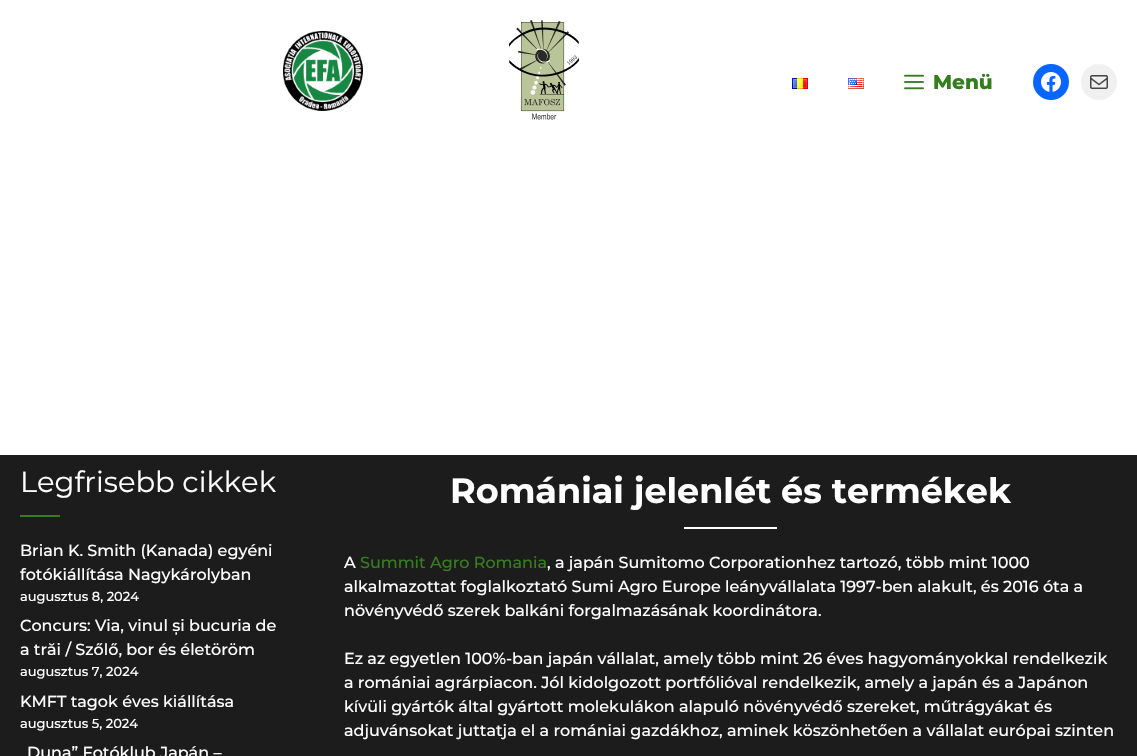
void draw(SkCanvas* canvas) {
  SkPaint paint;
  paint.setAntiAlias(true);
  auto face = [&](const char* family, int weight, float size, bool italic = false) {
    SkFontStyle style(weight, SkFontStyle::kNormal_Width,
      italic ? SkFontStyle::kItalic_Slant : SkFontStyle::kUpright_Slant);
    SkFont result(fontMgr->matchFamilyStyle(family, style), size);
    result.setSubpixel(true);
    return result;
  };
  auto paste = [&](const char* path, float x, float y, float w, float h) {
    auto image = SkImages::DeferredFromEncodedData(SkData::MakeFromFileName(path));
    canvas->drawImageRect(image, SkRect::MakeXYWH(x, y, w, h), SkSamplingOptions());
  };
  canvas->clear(0xffffffff);
  paste("img/1.png", 283, 31, 80, 80);
  paste("img/2.png", 509, 20, 70, 100);
  paste("img/3.png", 792, 78, 16, 11);
  paste("img/4.png", 848, 78, 16, 11);
  paste("img/5.png", 904, 74, 20, 16);
  paint.setColor(0xff0866ff);
  canvas->drawCircle(1051, 82, 18, paint);
  paste("img/6.png", 1041, 72, 20, 20);
  paint.setColor(0xfff0f0f0);
  canvas->drawCircle(1099, 82, 18, paint);
  paste("img/7.png", 1090, 75, 18, 14);
  {
    const struct { float x, y, w, h; SkColor color; } items[] = {
      {0, 455, 1137, 301, 0xff1d1c1c},
      {20, 515, 40, 2, 0xff347e1e},
      {684, 527, 93, 2, 0xffffffff},
    };
    for (auto [x, y, w, h, color] : items) {
      paint.setColor(color);
      canvas->drawRect(SkRect::MakeXYWH(x, y, w, h), paint);
    }
  }
  auto f0 = face("Montserrat", 800, 20);
  paint.setColor(0xff347e1e);
  canvas->drawString("Menü", 933, 89, f0, paint);
  auto f1 = face("Montserrat", 400, 29);
  paint.setColor(0xffffffff);
  canvas->drawString("Legfrisebb cikkek", 20, 492, f1, paint);
  auto f2 = face("Montserrat", 500, 16);
  canvas->drawString("Brian K. Smith (Kanada) egyéni", 20, 556, f2, paint);
  canvas->drawString("fotókiállítása Nagykárolyban", 20, 580, f2, paint);
  auto f3 = face("Montserrat", 500, 13);
  canvas->drawString("augusztus 8, 2024", 20, 601, f3, paint);
  canvas->drawString("Concurs: Via, vinul și bucuria de", 20, 631, f2, paint);
  canvas->drawString("a trăi / Szőlő, bor és életöröm", 20, 655, f2, paint);
  canvas->drawString("augusztus 7, 2024", 20, 676, f3, paint);
  canvas->drawString("KMFT tagok éves kiállítása", 20, 707, f2, paint);
  canvas->drawString("augusztus 5, 2024", 20, 728, f3, paint);
  canvas->drawString("Duna” Fotóklub Japán –", 27, 758, f2, paint);
  auto f4 = face("Montserrat", 700, 35);
  canvas->drawString("Romániai jelenlét és termékek", 450, 503, f4, paint);
  canvas->drawString("A", 344, 568, f2, paint);
  paint.setColor(0xff347e1e);
  canvas->drawString("Summit Agro Romania", 360, 568, f2, paint);
  paint.setColor(0xffffffff);
  {
    const struct { const char* s; float x, y; } items[] = {
      {", a japán Sumitomo Corporationhez tartozó, több mint 1000", 547, 568},
      {"alkalmazottat foglalkoztató Sumi Agro Europe leányvállalata 1997-ben alakult, és 2016 óta a", 344, 592},
      {"növényvédő szerek balkáni forgalmazásának koordinátora.", 344, 616},
      {"Ez az egyetlen 100%-ban japán vállalat, amely több mint 26 éves hagyományokkal rendelkezik", 344, 664},
      {"a romániai agrárpiacon. Jól kidolgozott portfólióval rendelkezik, amely a japán és a Japánon", 344, 688},
      {"kívüli gyártók által gyártott molekulákon alapuló növényvédő szereket, műtrágyákat és", 344, 712},
      {"adjuvánsokat juttatja el a romániai gazdákhoz, aminek köszönhetően a vállalat európai szinten", 344, 736},
    };
    for (auto [s, x, y] : items) {
      canvas->drawString(s, x, y, f2, paint);
    }
  }
}
